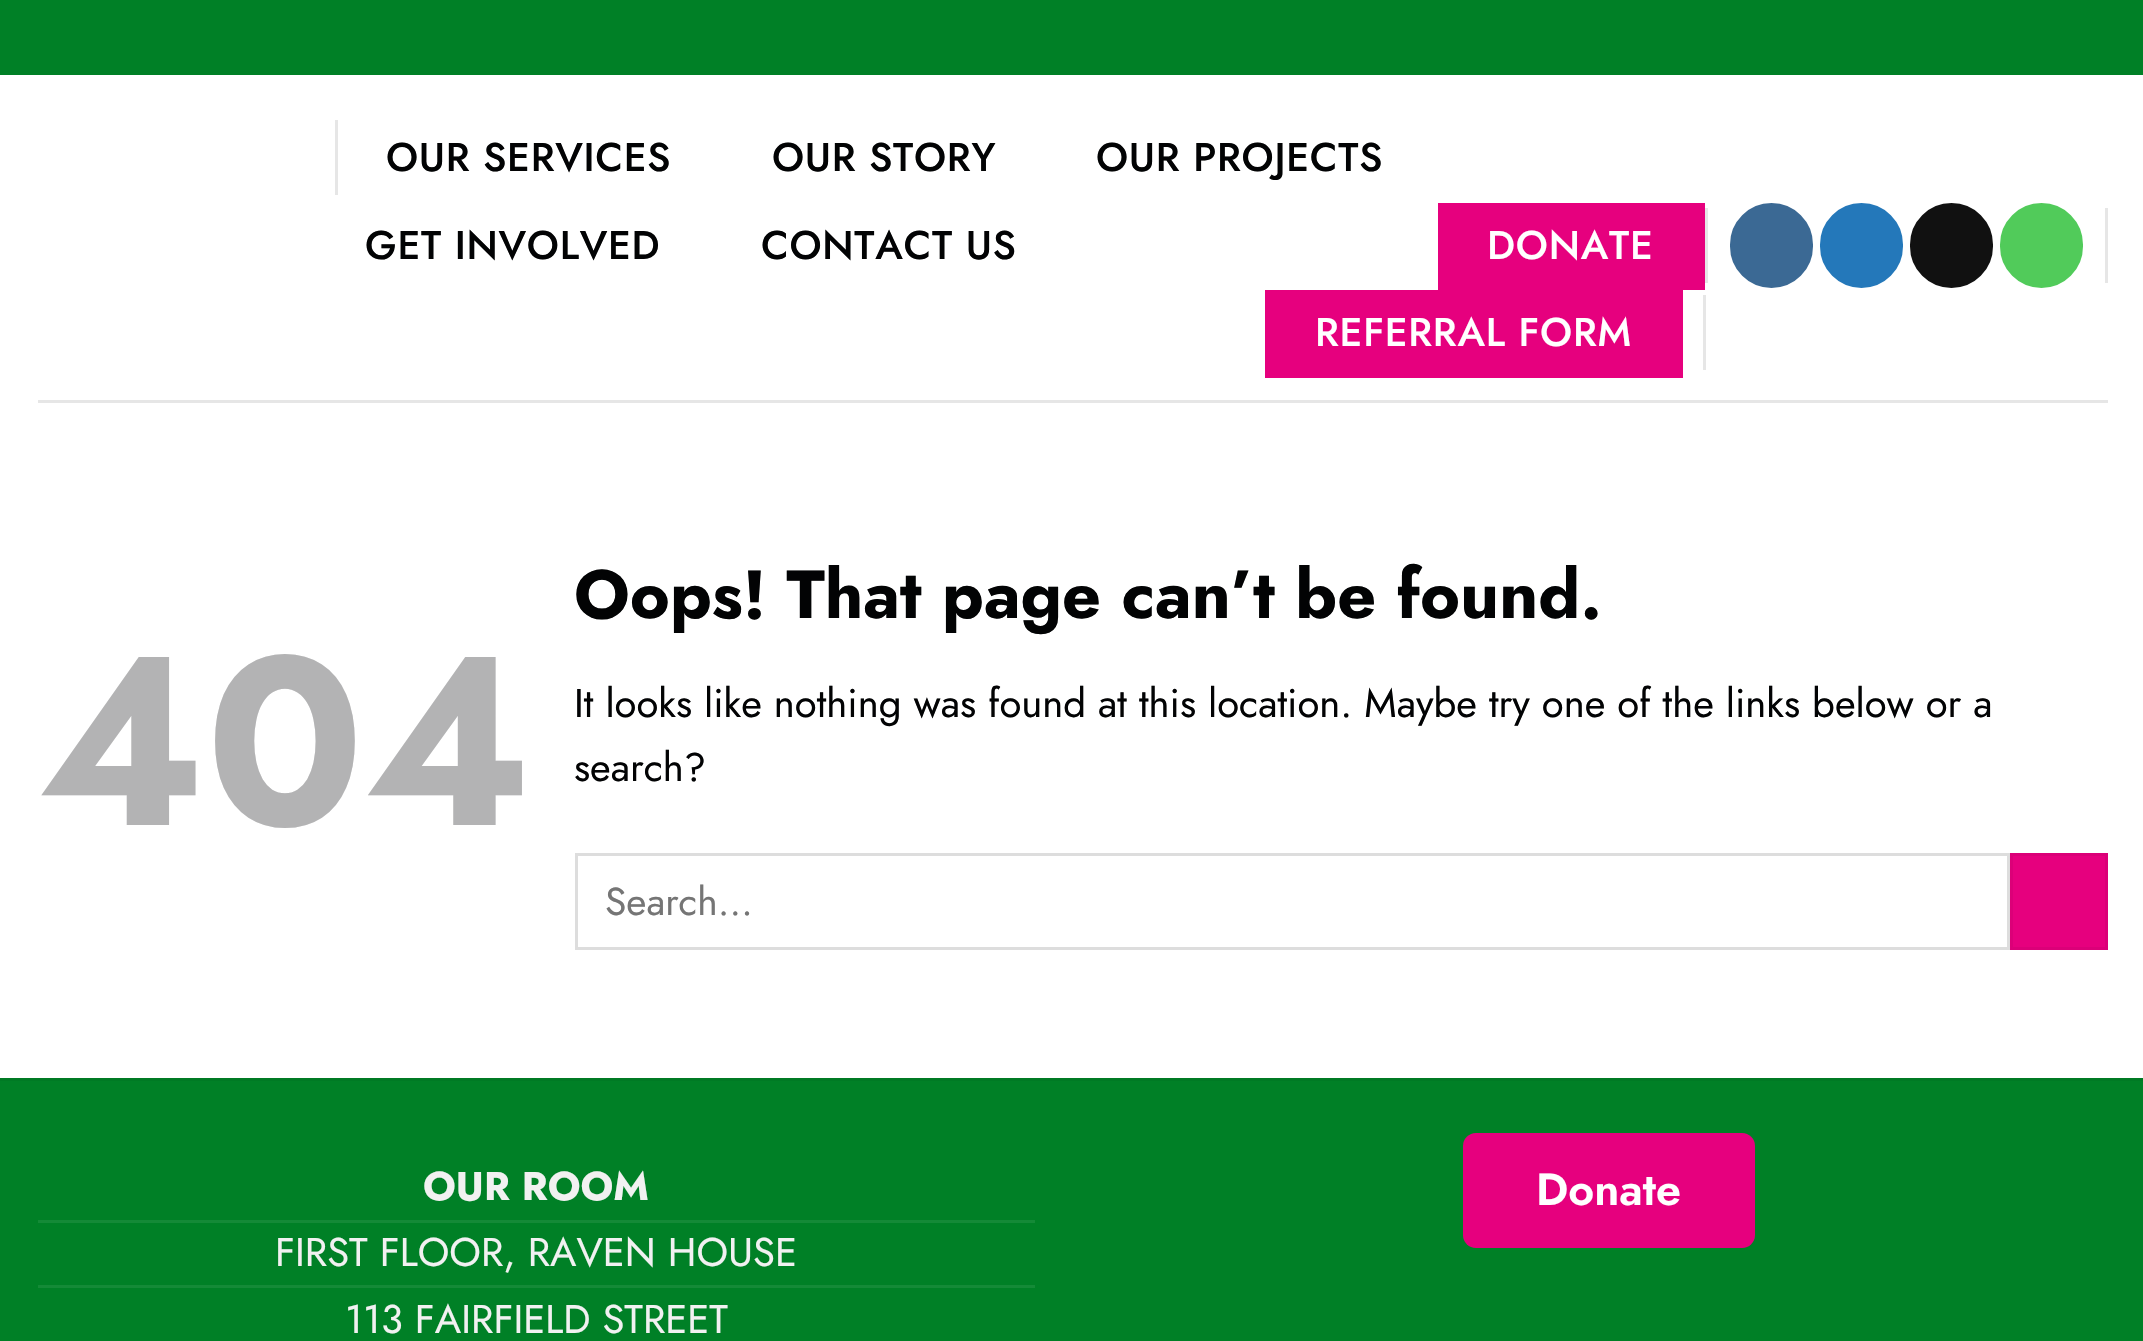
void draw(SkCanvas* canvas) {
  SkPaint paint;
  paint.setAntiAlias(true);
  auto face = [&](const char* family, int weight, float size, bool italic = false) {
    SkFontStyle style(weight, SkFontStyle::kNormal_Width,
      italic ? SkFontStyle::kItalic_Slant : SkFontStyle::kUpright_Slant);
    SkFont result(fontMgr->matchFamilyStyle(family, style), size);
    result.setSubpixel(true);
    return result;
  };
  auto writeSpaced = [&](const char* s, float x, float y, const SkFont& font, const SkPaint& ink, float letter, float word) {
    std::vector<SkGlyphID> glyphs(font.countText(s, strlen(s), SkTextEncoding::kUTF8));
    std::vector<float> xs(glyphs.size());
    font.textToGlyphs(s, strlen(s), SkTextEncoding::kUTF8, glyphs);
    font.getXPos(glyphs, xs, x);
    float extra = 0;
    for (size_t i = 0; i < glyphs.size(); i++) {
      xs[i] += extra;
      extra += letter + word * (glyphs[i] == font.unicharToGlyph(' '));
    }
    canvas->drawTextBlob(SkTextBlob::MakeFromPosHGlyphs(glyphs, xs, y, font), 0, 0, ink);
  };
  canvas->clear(0xffffffff);
  {
    const struct { float x, y, w, h; SkColor color; } items[] = {
      {0, 0, 2143, 75, 0xff008026},
      {335, 120, 3, 75, 0xffe6e6e6},
      {1438, 203, 267, 87, 0xffe6007e},
      {1265, 290, 418, 88, 0xffe6007e},
      {1703, 295, 3, 75, 0xffe6e6e6},
      {1705, 208, 3, 75, 0xffe6e6e6},
    };
    for (auto [x, y, w, h, color] : items) {
      paint.setColor(color);
      canvas->drawRect(SkRect::MakeXYWH(x, y, w, h), paint);
    }
  }
  paint.setColor(0xff3b6994);
  canvas->drawRoundRect(SkRect::MakeXYWH(1731.5f, 204.5f, 80, 82), 40, 40, paint);
  paint.setStroke(true);
  paint.setStrokeWidth(3);
  canvas->drawRoundRect(SkRect::MakeXYWH(1731.5f, 204.5f, 80, 82), 40, 40, paint);
  paint.setStroke(false);
  paint.setColor(0xff2478ba);
  canvas->drawRoundRect(SkRect::MakeXYWH(1821.5f, 204.5f, 80, 82), 40, 40, paint);
  paint.setStroke(true);
  canvas->drawRoundRect(SkRect::MakeXYWH(1821.5f, 204.5f, 80, 82), 40, 40, paint);
  paint.setStroke(false);
  paint.setColor(0xff111111);
  canvas->drawRoundRect(SkRect::MakeXYWH(1911.5f, 204.5f, 80, 82), 40, 40, paint);
  paint.setStroke(true);
  canvas->drawRoundRect(SkRect::MakeXYWH(1911.5f, 204.5f, 80, 82), 40, 40, paint);
  paint.setStroke(false);
  paint.setColor(0xff51cb5a);
  canvas->drawRoundRect(SkRect::MakeXYWH(2001.5f, 204.5f, 80, 82), 40, 40, paint);
  paint.setStroke(true);
  canvas->drawRoundRect(SkRect::MakeXYWH(2001.5f, 204.5f, 80, 82), 40, 40, paint);
  paint.setStroke(false);
  paint.setColor(0xffe6e6e6);
  canvas->drawRect(SkRect::MakeXYWH(2105, 208, 3, 75), paint);
  canvas->drawRect(SkRect::MakeXYWH(38, 400, 2070, 3), paint);
  paint.setStroke(true);
  paint.setColor(0xffdddddd);
  canvas->drawRect(SkRect::MakeXYWH(576.5f, 854.5f, 1432, 94), paint);
  paint.setStroke(false);
  paint.setColor(0xffe6007e);
  canvas->drawRect(SkRect::MakeXYWH(2011.5f, 854.5f, 95, 94), paint);
  paint.setStroke(true);
  paint.setColor(0xffdb0078);
  canvas->drawRect(SkRect::MakeXYWH(2011.5f, 854.5f, 95, 94), paint);
  paint.setStroke(false);
  {
    const struct { float x, y, w, h; SkColor color; } items[] = {
      {0, 1081, 2143, 260, 0xff008026},
      {0, 1078, 2143, 3, 0xff007a24},
      {38, 1220, 997, 3, 0xff148a37},
      {38, 1285, 997, 3, 0xff148a37},
    };
    for (auto [x, y, w, h, color] : items) {
      paint.setColor(color);
      canvas->drawRect(SkRect::MakeXYWH(x, y, w, h), paint);
    }
  }
  paint.setColor(0xffe6007e);
  canvas->drawRoundRect(SkRect::MakeXYWH(1463, 1133, 292, 115), 13, 13, paint);
  auto f0 = face("Jost", 500, 40);
  paint.setColor(0xff020304);
  {
    const struct { const char* s; float x, y; } items[] = {
      {"OUR SERVICES", 386, 171},
      {"OUR STORY", 772, 171},
      {"OUR PROJECTS", 1096, 171},
      {"GET INVOLVED", 365, 259},
      {"CONTACT US", 761, 259},
    };
    for (auto [s, x, y] : items) {
      writeSpaced(s, x, y, f0, paint, 0.75f, 0);
    }
  }
  paint.setColor(0xffffffff);
  writeSpaced("DONATE", 1487, 259, f0, paint, 0.75f, 0);
  writeSpaced("REFERRAL FORM", 1315, 346, f0, paint, 0.75f, 0);
  auto f1 = face("Jost", 700, 240);
  paint.setColor(0xffb3b3b4);
  canvas->drawString("404", 38, 825, f1, paint);
  auto f2 = face("Jost", 700, 68);
  paint.setColor(0xff020304);
  canvas->drawString("Oops! That page can’t be found.", 574, 618, f2, paint);
  auto f3 = face("Jost", 400, 40);
  canvas->drawString("It looks like nothing was found at this location. Maybe try one of the links below or a", 574, 717, f3, paint);
  canvas->drawString("search?", 574, 781, f3, paint);
  auto f4 = face("Jost", 400, 39);
  paint.setColor(0xff757575);
  canvas->drawString("Search…", 605, 915, f4, paint);
  auto f5 = face("Jost", 700, 40);
  paint.setColor(0xfff1f1f1);
  canvas->drawString("OUR ROOM", 423, 1200, f5, paint);
  canvas->drawString("FIRST FLOOR, RAVEN HOUSE", 275, 1266, f3, paint);
  canvas->drawString("113 FAIRFIELD STREET", 345, 1333, f3, paint);
  auto f6 = face("Jost", 600, 45);
  paint.setColor(0xffffffff);
  canvas->drawString("Donate", 1536, 1205, f6, paint);
}
